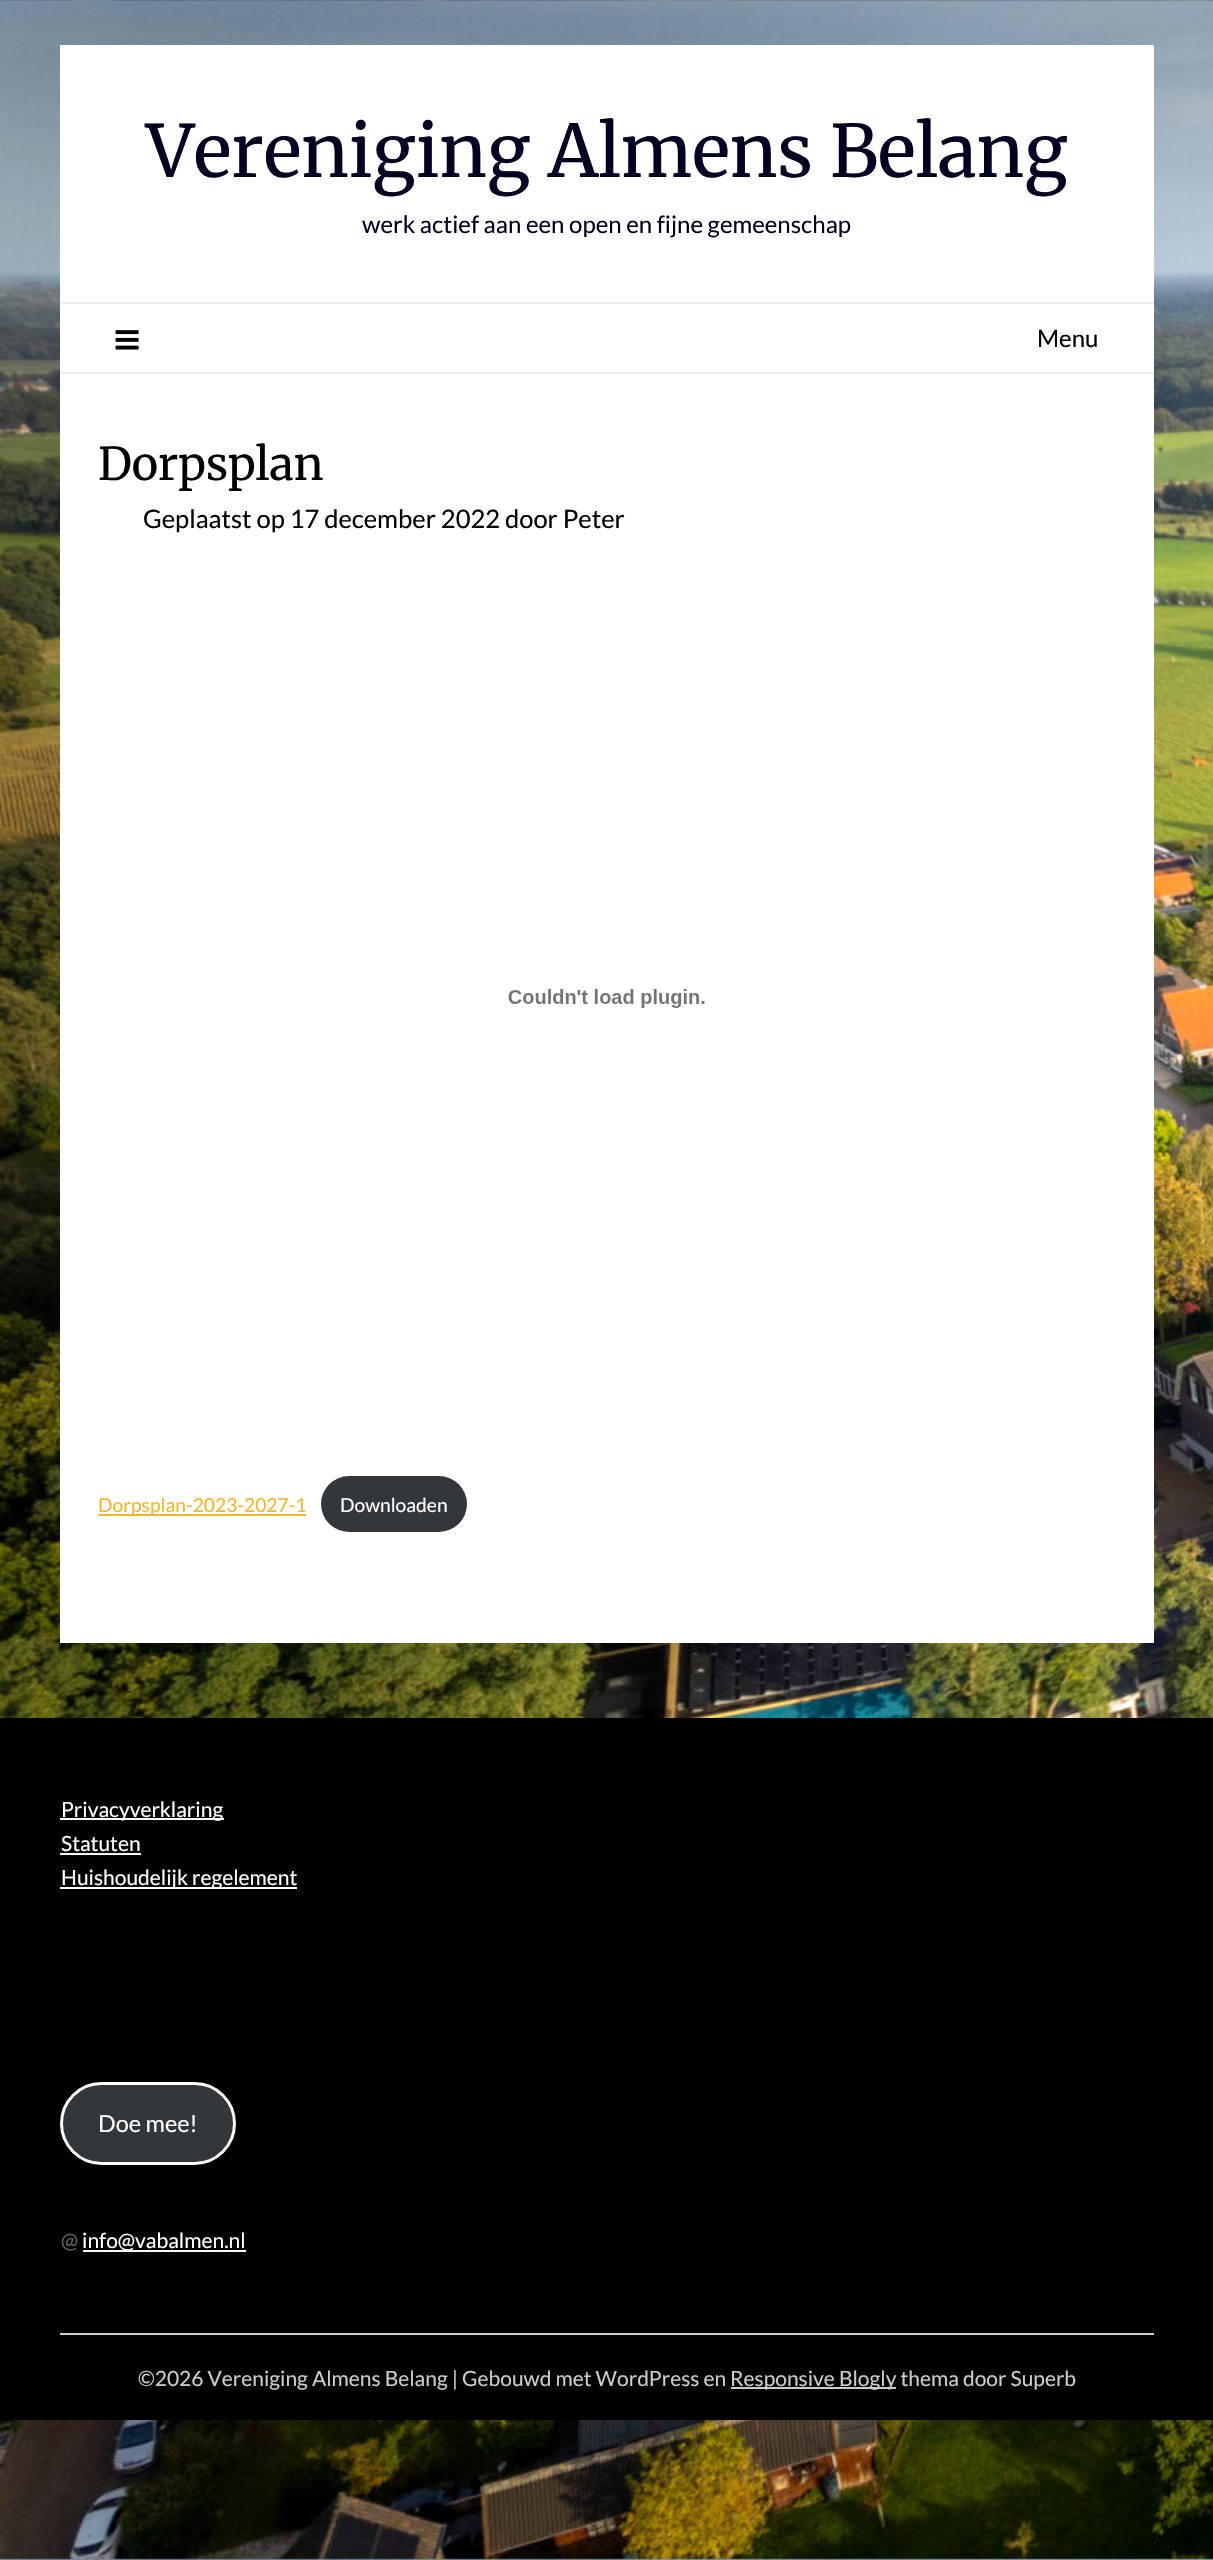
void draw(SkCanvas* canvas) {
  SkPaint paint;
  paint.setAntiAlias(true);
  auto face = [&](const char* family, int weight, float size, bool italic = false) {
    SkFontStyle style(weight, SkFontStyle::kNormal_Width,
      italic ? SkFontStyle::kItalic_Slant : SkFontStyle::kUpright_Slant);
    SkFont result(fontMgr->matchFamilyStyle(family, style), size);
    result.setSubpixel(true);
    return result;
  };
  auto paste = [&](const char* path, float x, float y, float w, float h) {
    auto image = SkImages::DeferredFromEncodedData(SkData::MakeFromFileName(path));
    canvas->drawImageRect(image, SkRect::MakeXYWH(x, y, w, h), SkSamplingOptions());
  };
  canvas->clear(0xffffffff);
  paste("img/1.png", 0, 0, 1213, 2560);
  {
    const struct { float x, y, w, h; SkColor color; } items[] = {
      {60, 45, 1094, 257, 0xffffffff},
      {60, 304, 1094, 68, 0xffffffff},
      {60, 302, 1094, 2, 0xffeeeeee},
      {60, 372, 1094, 2, 0xffeeeeee},
    };
    for (auto [x, y, w, h, color] : items) {
      paint.setColor(color);
      canvas->drawRect(SkRect::MakeXYWH(x, y, w, h), paint);
    }
  }
  paste("img/2.png", 115, 330, 24, 20);
  paint.setColor(0xffffffff);
  canvas->drawRect(SkRect::MakeXYWH(60, 374, 1094, 1269), paint);
  paste("img/3.png", 508, 989, 197, 19);
  paint.setColor(0xfffab526);
  canvas->drawRect(SkRect::MakeXYWH(98, 1514, 208, 2), paint);
  paint.setColor(0xff32373c);
  canvas->drawRoundRect(SkRect::MakeXYWH(321, 1476, 146, 56), 28, 28, paint);
  {
    const struct { float x, y, w, h; SkColor color; } items[] = {
      {0, 1718, 1213, 702, 0xff000000},
      {60, 1818, 164, 2, 0xffffffff},
      {60, 1853, 81, 2, 0xffffffff},
      {60, 1887, 237, 2, 0xffffffff},
    };
    for (auto [x, y, w, h, color] : items) {
      paint.setColor(color);
      canvas->drawRect(SkRect::MakeXYWH(x, y, w, h), paint);
    }
  }
  paint.setColor(0xff32373c);
  canvas->drawRoundRect(SkRect::MakeXYWH(61.5f, 2083.5f, 173, 80), 40, 40, paint);
  paint.setStroke(true);
  paint.setStrokeWidth(3);
  paint.setColor(0xffffffff);
  canvas->drawRoundRect(SkRect::MakeXYWH(61.5f, 2083.5f, 173, 80), 40, 40, paint);
  paint.setStroke(false);
  {
    const struct { float x, y, w, h; SkColor color; } items[] = {
      {83, 2250, 163, 2, 0xffffffff},
      {60, 2333, 1094, 2, 0xffcccccc},
      {731, 2387, 165, 2, 0xffcccccc},
    };
    for (auto [x, y, w, h, color] : items) {
      paint.setColor(color);
      canvas->drawRect(SkRect::MakeXYWH(x, y, w, h), paint);
    }
  }
  auto f0 = face("Merriweather", 400, 72);
  paint.setColor(0xff000222);
  canvas->drawString("Vereniging Almens Belang", 146, 177, f0, paint);
  auto f1 = face("Lato", 400, 24);
  canvas->drawString("werk actief aan een open en fijne gemeenschap", 362, 233, f1, paint);
  paint.setColor(0xff000000);
  canvas->drawString("Menu", 1037, 347, f1, paint);
  auto f2 = face("Merriweather", 400, 45);
  canvas->drawString("Dorpsplan", 98, 480, f2, paint);
  auto f3 = face("Lato", 400, 25.5f);
  canvas->drawString("Geplaatst op 17 december 2022 door Peter", 143, 528, f3, paint);
  auto f4 = face("Lato", 400, 19.25f);
  paint.setColor(0xfffab526);
  canvas->drawString("Dorpsplan-2023-2027-1", 98, 1512, f4, paint);
  paint.setColor(0xffffffff);
  canvas->drawString("Downloaden", 340, 1512, f4, paint);
  auto f5 = face("Lato", 400, 21);
  {
    const struct { const char* s; float x, y; } items[] = {
      {"Privacyverklaring", 61, 1817},
      {"Statuten", 61, 1851},
      {"Huishoudelijk regelement", 61, 1885},
    };
    for (auto [s, x, y] : items) {
      canvas->drawString(s, x, y, f5, paint);
    }
  }
  auto f6 = face("Lato", 400, 23.5f);
  canvas->drawString("Doe mee!", 98, 2132, f6, paint);
  paint.setColor(0xff656565);
  canvas->drawString("@", 61, 2248, f5, paint);
  paint.setColor(0xffffffff);
  canvas->drawString("info@vabalmen.nl", 82, 2248, f5, paint);
  paint.setColor(0xffcccccc);
  canvas->drawString("©2026 Vereniging Almens Belang | Gebouwd met WordPress en", 138, 2386, f5, paint);
  canvas->drawString("Responsive Blogly thema door Superb", 730, 2386, f5, paint);
}
